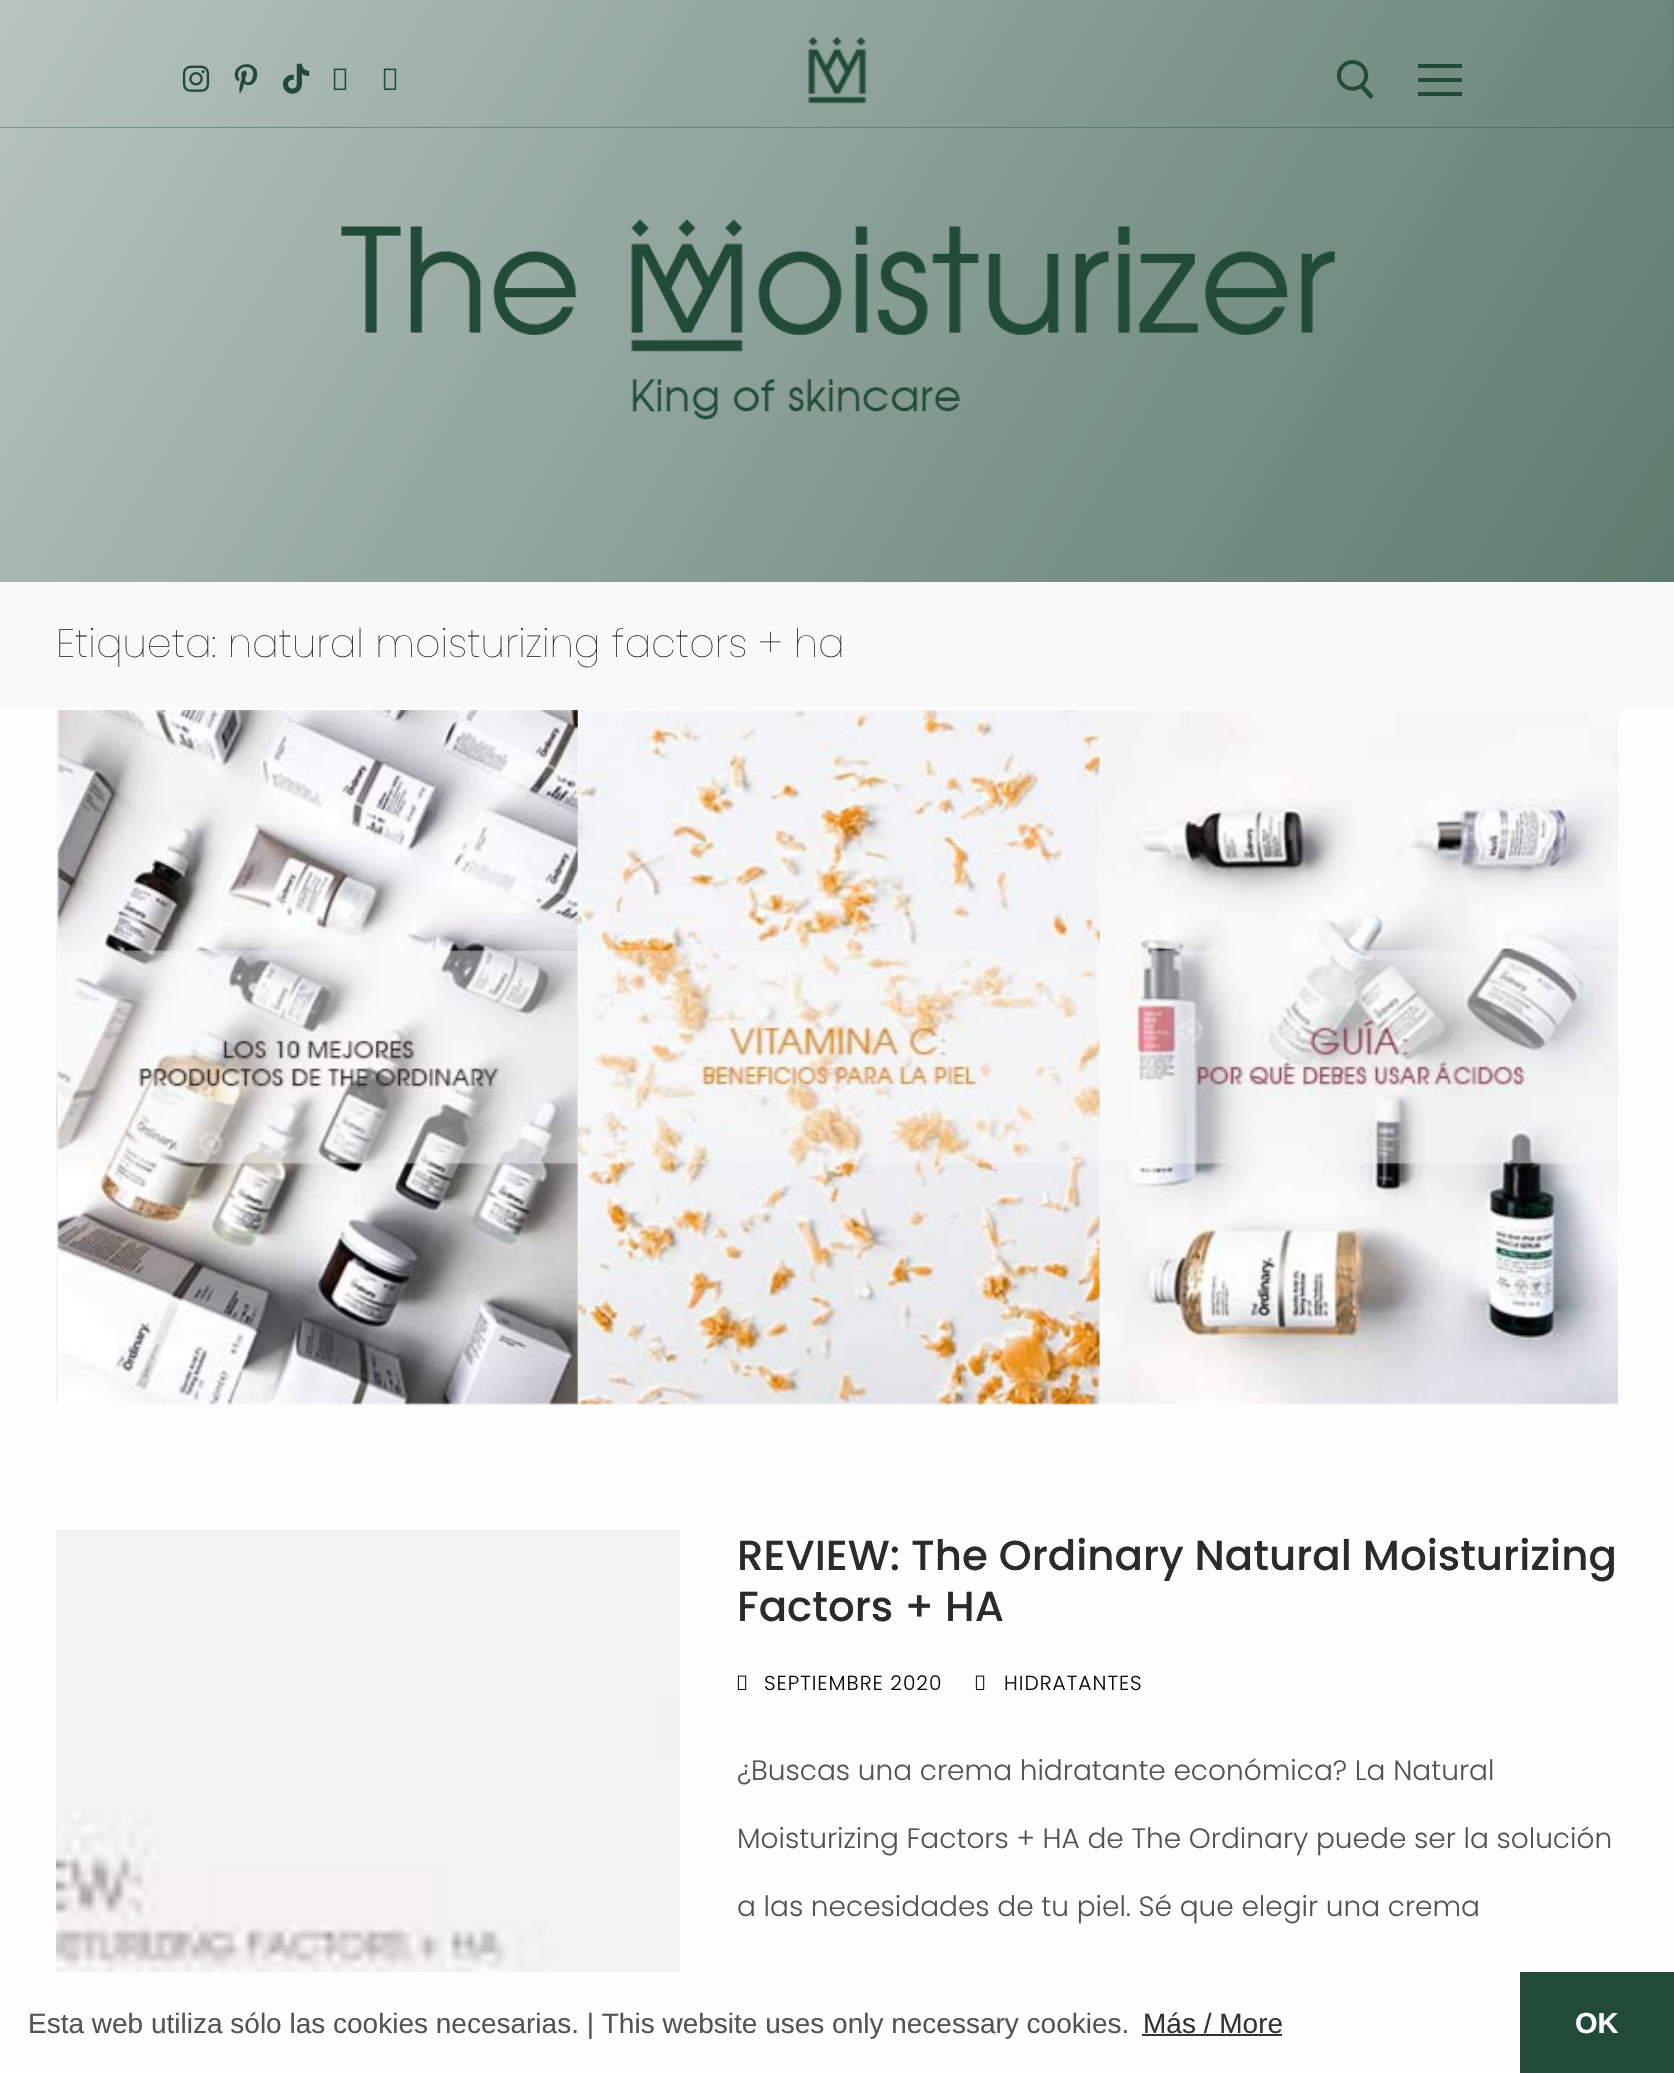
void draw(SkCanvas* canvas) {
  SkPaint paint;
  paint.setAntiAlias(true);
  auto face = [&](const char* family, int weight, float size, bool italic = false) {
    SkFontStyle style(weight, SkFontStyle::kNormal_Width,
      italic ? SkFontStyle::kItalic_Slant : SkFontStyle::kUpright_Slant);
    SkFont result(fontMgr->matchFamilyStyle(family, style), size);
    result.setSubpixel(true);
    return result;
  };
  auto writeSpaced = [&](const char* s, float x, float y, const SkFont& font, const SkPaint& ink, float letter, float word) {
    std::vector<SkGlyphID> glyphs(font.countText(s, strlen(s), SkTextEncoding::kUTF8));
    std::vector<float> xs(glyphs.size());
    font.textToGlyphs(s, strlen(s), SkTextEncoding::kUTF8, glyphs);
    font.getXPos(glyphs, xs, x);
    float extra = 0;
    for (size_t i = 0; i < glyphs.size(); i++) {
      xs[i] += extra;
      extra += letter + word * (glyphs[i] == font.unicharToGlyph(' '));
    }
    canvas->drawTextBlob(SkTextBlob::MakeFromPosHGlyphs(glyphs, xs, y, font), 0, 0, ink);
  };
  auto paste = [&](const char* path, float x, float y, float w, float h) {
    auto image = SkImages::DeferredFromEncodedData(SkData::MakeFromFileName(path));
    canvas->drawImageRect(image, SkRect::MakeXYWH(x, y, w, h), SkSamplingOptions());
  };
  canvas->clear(0xfffdfdfd);
  paint.setColor(0xff224b37);
  canvas->drawRect(SkRect::MakeXYWH(0, 0, 1674, 128), paint);
  paste("img/1.png", 0, 0, 1674, 128);
  paste("img/2.png", 182, 65, 28, 27);
  paste("img/3.png", 234, 64, 24, 30);
  paste("img/4.png", 282, 63, 28, 31);
  paste("img/5.png", 333, 68, 14, 22);
  paste("img/6.png", 383, 68, 14, 22);
  paste("img/7.png", 807, 36, 60, 68);
  paste("img/8.png", 1337, 60, 37, 39);
  {
    const struct { float x, y, w, h; SkColor color; } items[] = {
      {1418, 78, 44, 4, 0xff224b37},
      {1418, 64, 44, 4, 0xff224b37},
      {1418, 92, 44, 4, 0xff224b37},
    };
    for (auto [x, y, w, h, color] : items) {
      paint.setColor(color);
      canvas->drawRect(SkRect::MakeXYWH(x, y, w, h), paint);
    }
  }
  paste("img/9.png", 0, 128, 1674, 454);
  paste("img/10.png", 341, 219, 994, 201);
  paint.setColor(0xfff9f9f9);
  canvas->drawRect(SkRect::MakeXYWH(0, 582, 1674, 126), paint);
  paste("img/11.png", 56, 710, 2, 694);
  paste("img/12.png", 57, 710, 523, 696);
  paste("img/13.png", 578, 710, 522, 696);
  paste("img/14.png", 1099, 710, 519, 695);
  paste("img/15.png", 56, 1530, 624, 442);
  paste("img/16.png", 737, 1675, 10, 15);
  paste("img/16.png", 975, 1675, 10, 15);
  paint.setColor(0xff333333);
  canvas->drawRect(SkRect::MakeXYWH(1142, 2034, 140, 2), paint);
  paint.setColor(0xff224b37);
  canvas->drawRect(SkRect::MakeXYWH(1520, 1972, 154, 101), paint);
  auto f0 = face("Poppins", 100, 39.6f);
  paint.setColor(0xff2b2b2b);
  canvas->drawString("Etiqueta: natural moisturizing factors + ha", 56, 657, f0, paint);
  auto f1 = face("Poppins", 500, 42);
  canvas->drawString("REVIEW: The Ordinary Natural Moisturizing", 737, 1570, f1, paint);
  canvas->drawString("Factors + HA", 737, 1621, f1, paint);
  auto f2 = face("Poppins", 300, 20.25f);
  paint.setColor(0xff0a0a0a);
  writeSpaced("SEPTIEMBRE 2020", 764, 1690, f2, paint, 1, 0);
  writeSpaced("HIDRATANTES", 1004, 1690, f2, paint, 1, 0);
  auto f3 = face("Poppins", 300, 28);
  paint.setColor(0xff535353);
  {
    const struct { const char* s; float x, y; } items[] = {
      {"¿Buscas una crema hidratante económica? La Natural", 737, 1780},
      {"Moisturizing Factors + HA de The Ordinary puede ser la solución", 737, 1848},
      {"a las necesidades de tu piel. Sé que elegir una crema", 737, 1916},
    };
    for (auto [s, x, y] : items) {
      canvas->drawString(s, x, y, f3, paint);
    }
  }
  auto f4 = face("Liberation Sans", 400, 28);
  canvas->drawString("Esta web utiliza sólo las cookies necesarias. | This website uses only necessary cookies.", 28, 2033, f4, paint);
  paint.setColor(0xff333333);
  canvas->drawString("Más / More", 1143, 2033, f4, paint);
  auto f5 = face("Liberation Sans", 700, 29);
  paint.setColor(0xffffffff);
  canvas->drawString("OK", 1575, 2033, f5, paint);
}
